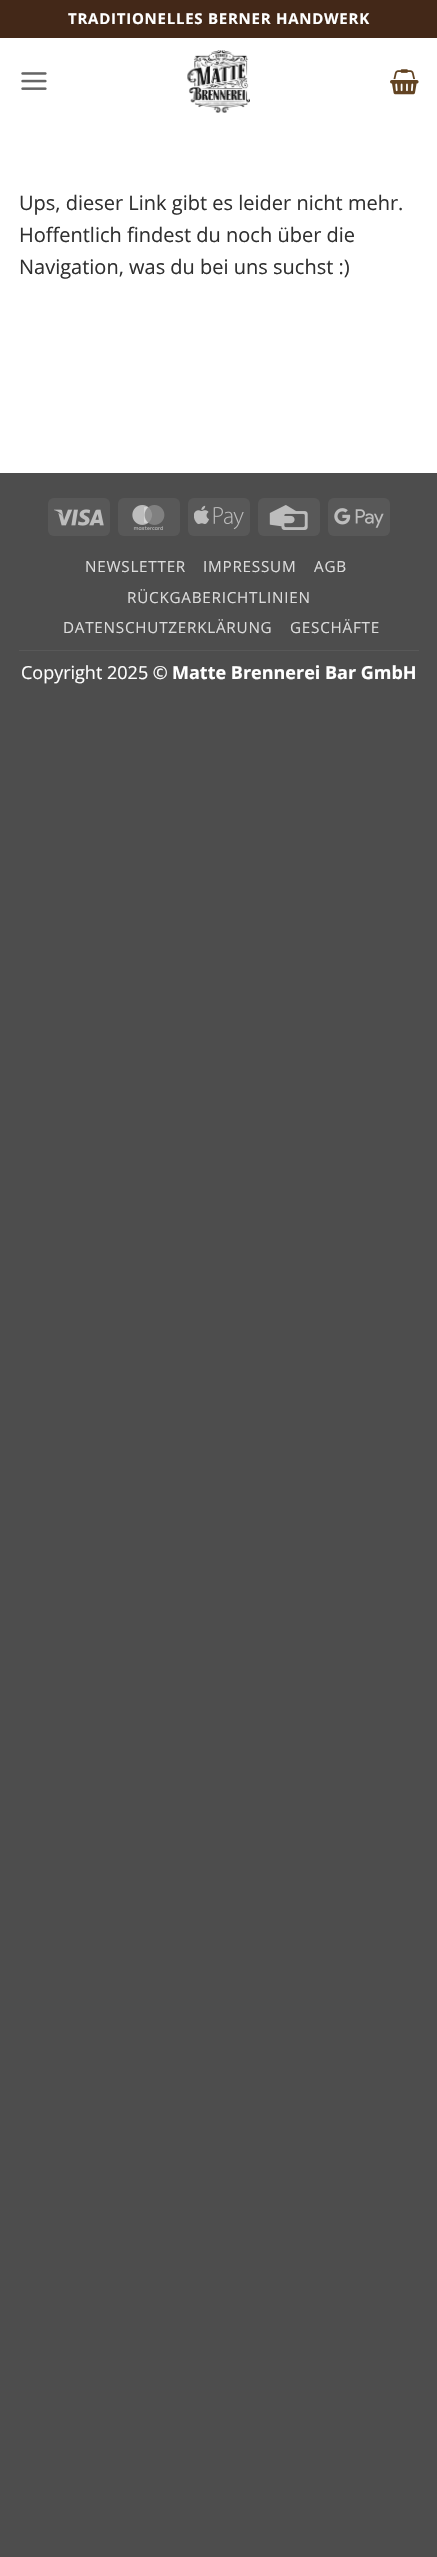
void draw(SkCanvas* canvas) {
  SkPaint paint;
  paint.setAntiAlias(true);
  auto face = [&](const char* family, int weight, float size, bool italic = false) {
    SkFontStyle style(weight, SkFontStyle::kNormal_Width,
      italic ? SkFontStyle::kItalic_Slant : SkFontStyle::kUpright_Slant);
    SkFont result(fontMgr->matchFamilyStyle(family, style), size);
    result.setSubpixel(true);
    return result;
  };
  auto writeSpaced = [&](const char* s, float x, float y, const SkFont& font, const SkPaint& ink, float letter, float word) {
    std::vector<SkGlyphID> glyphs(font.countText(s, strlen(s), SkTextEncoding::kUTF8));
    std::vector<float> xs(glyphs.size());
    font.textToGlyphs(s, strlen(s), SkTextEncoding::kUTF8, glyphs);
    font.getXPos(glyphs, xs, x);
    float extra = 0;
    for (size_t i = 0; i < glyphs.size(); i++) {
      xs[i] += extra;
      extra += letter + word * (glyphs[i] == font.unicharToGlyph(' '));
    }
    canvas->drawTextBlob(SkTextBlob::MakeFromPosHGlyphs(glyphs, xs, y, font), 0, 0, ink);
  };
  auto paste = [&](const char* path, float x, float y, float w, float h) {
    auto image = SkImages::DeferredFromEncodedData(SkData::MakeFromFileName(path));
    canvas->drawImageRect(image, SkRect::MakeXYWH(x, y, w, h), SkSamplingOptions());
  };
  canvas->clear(0xff4d4d4d);
  paint.setColor(0xffffffff);
  canvas->drawRect(SkRect::MakeXYWH(0, 38, 437, 435), paint);
  paint.setColor(0xff432818);
  canvas->drawRect(SkRect::MakeXYWH(0, 0, 437, 38), paint);
  paste("img/1.png", 21, 72, 26, 18);
  paste("img/2.png", 187, 50, 63, 63);
  paste("img/3.png", 390, 69, 29, 26);
  paint.setColor(0xff585858);
  canvas->drawRoundRect(SkRect::MakeXYWH(48, 498, 62, 38), 6, 6, paint);
  paste("img/4.png", 54, 509, 50, 17);
  canvas->drawRoundRect(SkRect::MakeXYWH(118, 498, 62, 38), 6, 6, paint);
  paste("img/5.png", 132, 505, 33, 25);
  canvas->drawRoundRect(SkRect::MakeXYWH(188, 498, 62, 38), 6, 6, paint);
  paste("img/6.png", 194, 505, 50, 25);
  canvas->drawRoundRect(SkRect::MakeXYWH(258, 498, 62, 38), 6, 6, paint);
  paste("img/7.png", 269, 505, 39, 25);
  canvas->drawRoundRect(SkRect::MakeXYWH(328, 498, 62, 38), 6, 6, paint);
  paste("img/8.png", 334, 508, 50, 20);
  canvas->drawRect(SkRect::MakeXYWH(19, 650, 400, 1), paint);
  auto f0 = face("Open Sans", 700, 15);
  paint.setColor(0xffffffff);
  writeSpaced("TRADITIONELLES BERNER HANDWERK", 68, 24, f0, paint, 0.75f, 0);
  auto f1 = face("Open Sans", 400, 20);
  paint.setColor(0xff303030);
  {
    const struct { const char* s; float x, y; } items[] = {
      {"Ups, dieser Link gibt es leider nicht mehr.", 19, 210},
      {"Hoffentlich findest du noch über die", 19, 242},
      {"Navigation, was du bei uns suchst :)", 19, 274},
    };
    for (auto [s, x, y] : items) {
      canvas->drawString(s, x, y, f1, paint);
    }
  }
  auto f2 = face("Open Sans", 400, 15.25f);
  paint.setColor(0xffdbdbdb);
  {
    const struct { const char* s; float x, y; } items[] = {
      {"NEWSLETTER", 85, 572},
      {"IMPRESSUM", 203, 572},
      {"AGB", 314, 572},
      {"RÜCKGABERICHTLINIEN", 127, 603},
      {"DATENSCHUTZERKLÄRUNG", 63, 633},
      {"GESCHÄFTE", 290, 633},
    };
    for (auto [s, x, y] : items) {
      writeSpaced(s, x, y, f2, paint, 0.75f, 0);
    }
  }
  auto f3 = face("Open Sans", 400, 18);
  paint.setColor(0xffffffff);
  canvas->drawString("Copyright 2025 ©", 21, 679, f3, paint);
  auto f4 = face("Open Sans", 700, 18);
  canvas->drawString("Matte Brennerei Bar GmbH", 172, 679, f4, paint);
}
